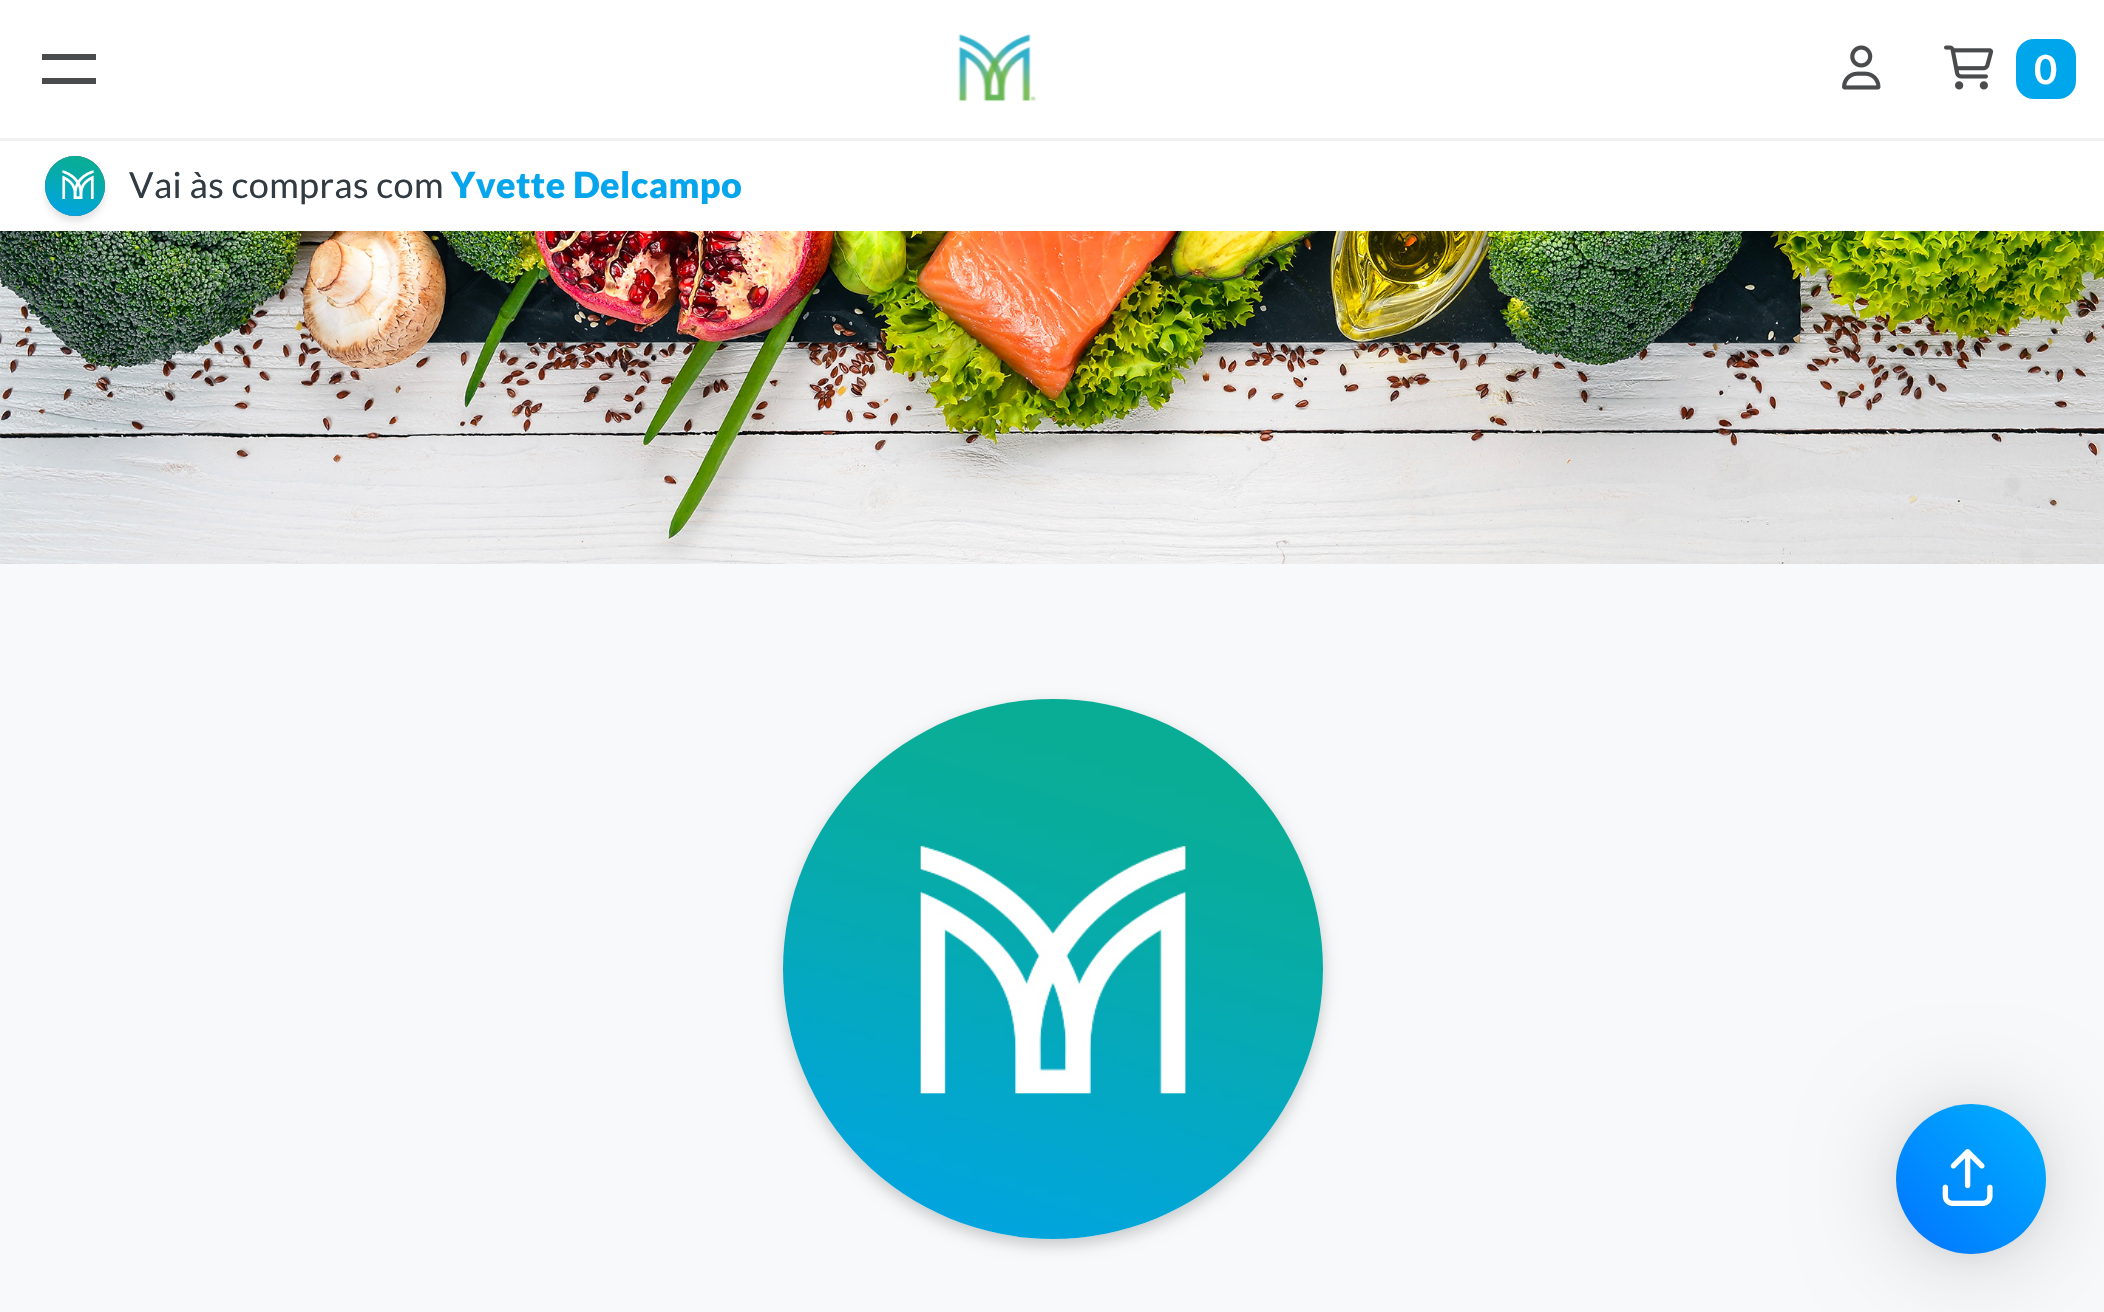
void draw(SkCanvas* canvas) {
  SkPaint paint;
  paint.setAntiAlias(true);
  auto face = [&](const char* family, int weight, float size, bool italic = false) {
    SkFontStyle style(weight, SkFontStyle::kNormal_Width,
      italic ? SkFontStyle::kItalic_Slant : SkFontStyle::kUpright_Slant);
    SkFont result(fontMgr->matchFamilyStyle(family, style), size);
    result.setSubpixel(true);
    return result;
  };
  auto writeSpaced = [&](const char* s, float x, float y, const SkFont& font, const SkPaint& ink, float letter, float word) {
    std::vector<SkGlyphID> glyphs(font.countText(s, strlen(s), SkTextEncoding::kUTF8));
    std::vector<float> xs(glyphs.size());
    font.textToGlyphs(s, strlen(s), SkTextEncoding::kUTF8, glyphs);
    font.getXPos(glyphs, xs, x);
    float extra = 0;
    for (size_t i = 0; i < glyphs.size(); i++) {
      xs[i] += extra;
      extra += letter + word * (glyphs[i] == font.unicharToGlyph(' '));
    }
    canvas->drawTextBlob(SkTextBlob::MakeFromPosHGlyphs(glyphs, xs, y, font), 0, 0, ink);
  };
  auto paste = [&](const char* path, float x, float y, float w, float h) {
    auto image = SkImages::DeferredFromEncodedData(SkData::MakeFromFileName(path));
    canvas->drawImageRect(image, SkRect::MakeXYWH(x, y, w, h), SkSamplingOptions());
  };
  auto shape = [&](const char* data, bool evenOdd = false) {
    SkPath result = *SkParsePath::FromSVGString(data);
    if (evenOdd) result.setFillType(SkPathFillType::kEvenOdd);
    return result;
  };
  canvas->clear(0xffffffff);
  paint.setColor(0xff494b4d);
  canvas->drawRect(SkRect::MakeXYWH(42, 54, 54, 6), paint);
  canvas->drawRect(SkRect::MakeXYWH(42, 78, 54, 6), paint);
  paste("img/1.png", 958, 34, 78, 68);
  paste("img/2.png", 1842, 45, 39, 45);
  paste("img/3.png", 1944, 45, 50, 45);
  paint.setColor(0xff00a6ec);
  canvas->drawRoundRect(SkRect::MakeXYWH(2016, 39, 60, 60), 18, 18, paint);
  paint.setColor(0xfff1f1f2);
  canvas->drawRect(SkRect::MakeXYWH(0, 138, 2104, 3), paint);
  paint.setColor(0x1a000000);
  paint.setMaskFilter(SkMaskFilter::MakeBlur(kNormal_SkBlurStyle, 3));
  canvas->drawRoundRect(SkRect::MakeXYWH(45, 162, 60, 60), 30, 30, paint);
  paint.setMaskFilter(nullptr);
  paint.setColor(0xff415462);
  canvas->drawCircle(75, 186, 30, paint);
  paste("img/4.png", 45, 156, 60, 60);
  paint.setColor(0xfff7f9fa);
  canvas->drawRect(SkRect::MakeXYWH(0, 564, 2104, 748), paint);
  paste("img/5.png", 0, 231, 2104, 333);
  paint.setColor(0x33000000);
  paint.setMaskFilter(SkMaskFilter::MakeBlur(kNormal_SkBlurStyle, 7.5f));
  canvas->drawRoundRect(SkRect::MakeXYWH(783, 705, 540, 540), 270, 270, paint);
  paint.setMaskFilter(nullptr);
  paint.setColor(0xffffffff);
  canvas->drawCircle(1053, 969, 270, paint);
  paste("img/6.png", 783, 699, 540, 540);
  paint.setColor(0x29000000);
  paint.setMaskFilter(SkMaskFilter::MakeBlur(kNormal_SkBlurStyle, 48));
  canvas->drawRoundRect(SkRect::MakeXYWH(1896, 1110, 150, 150), 75, 75, paint);
  paint.setMaskFilter(nullptr);
  paint.setColor(0x0f000000);
  paint.setMaskFilter(SkMaskFilter::MakeBlur(kNormal_SkBlurStyle, 9));
  canvas->drawRoundRect(SkRect::MakeXYWH(1896, 1107, 150, 150), 75, 75, paint);
  paint.setMaskFilter(nullptr);
  {
    const SkColor colors[] = {0xff0172ff, 0xff00b4ff};
    const float stops[] = {0, 1};
    const SkPoint ends[] = {{1896, 1254}, {2046, 1104}};
    paint.setShader(SkGradientShader::MakeLinear(ends, colors, stops, 2, SkTileMode::kClamp));
    paint.setAlpha(255);
  }
  canvas->drawPath(shape("M1896 1179C1896 1138 1930 1104 1971 1104C2012 1104 2046 1138 2046 1179C2046 1220 2012 1254 1971 1254C1930 1254 1896 1220 1896 1179Z"), paint);
  paste("img/7.png", 1942, 1149, 51, 57);
  auto f0 = face("Lato", 700, 40);
  paint.setShader(nullptr);
  paint.setColor(0xffffffff);
  canvas->drawString("0", 2034, 84, f0, paint);
  auto f1 = face("Lato", 400, 36);
  paint.setColor(0xff323b42);
  writeSpaced("Vai às compras com", 129, 198, f1, paint, 0.4f, 0);
  auto f2 = face("Lato", 900, 36);
  paint.setColor(0xff07a6ec);
  writeSpaced("Yvette Delcampo", 451, 198, f2, paint, 0.4f, 0);
}
